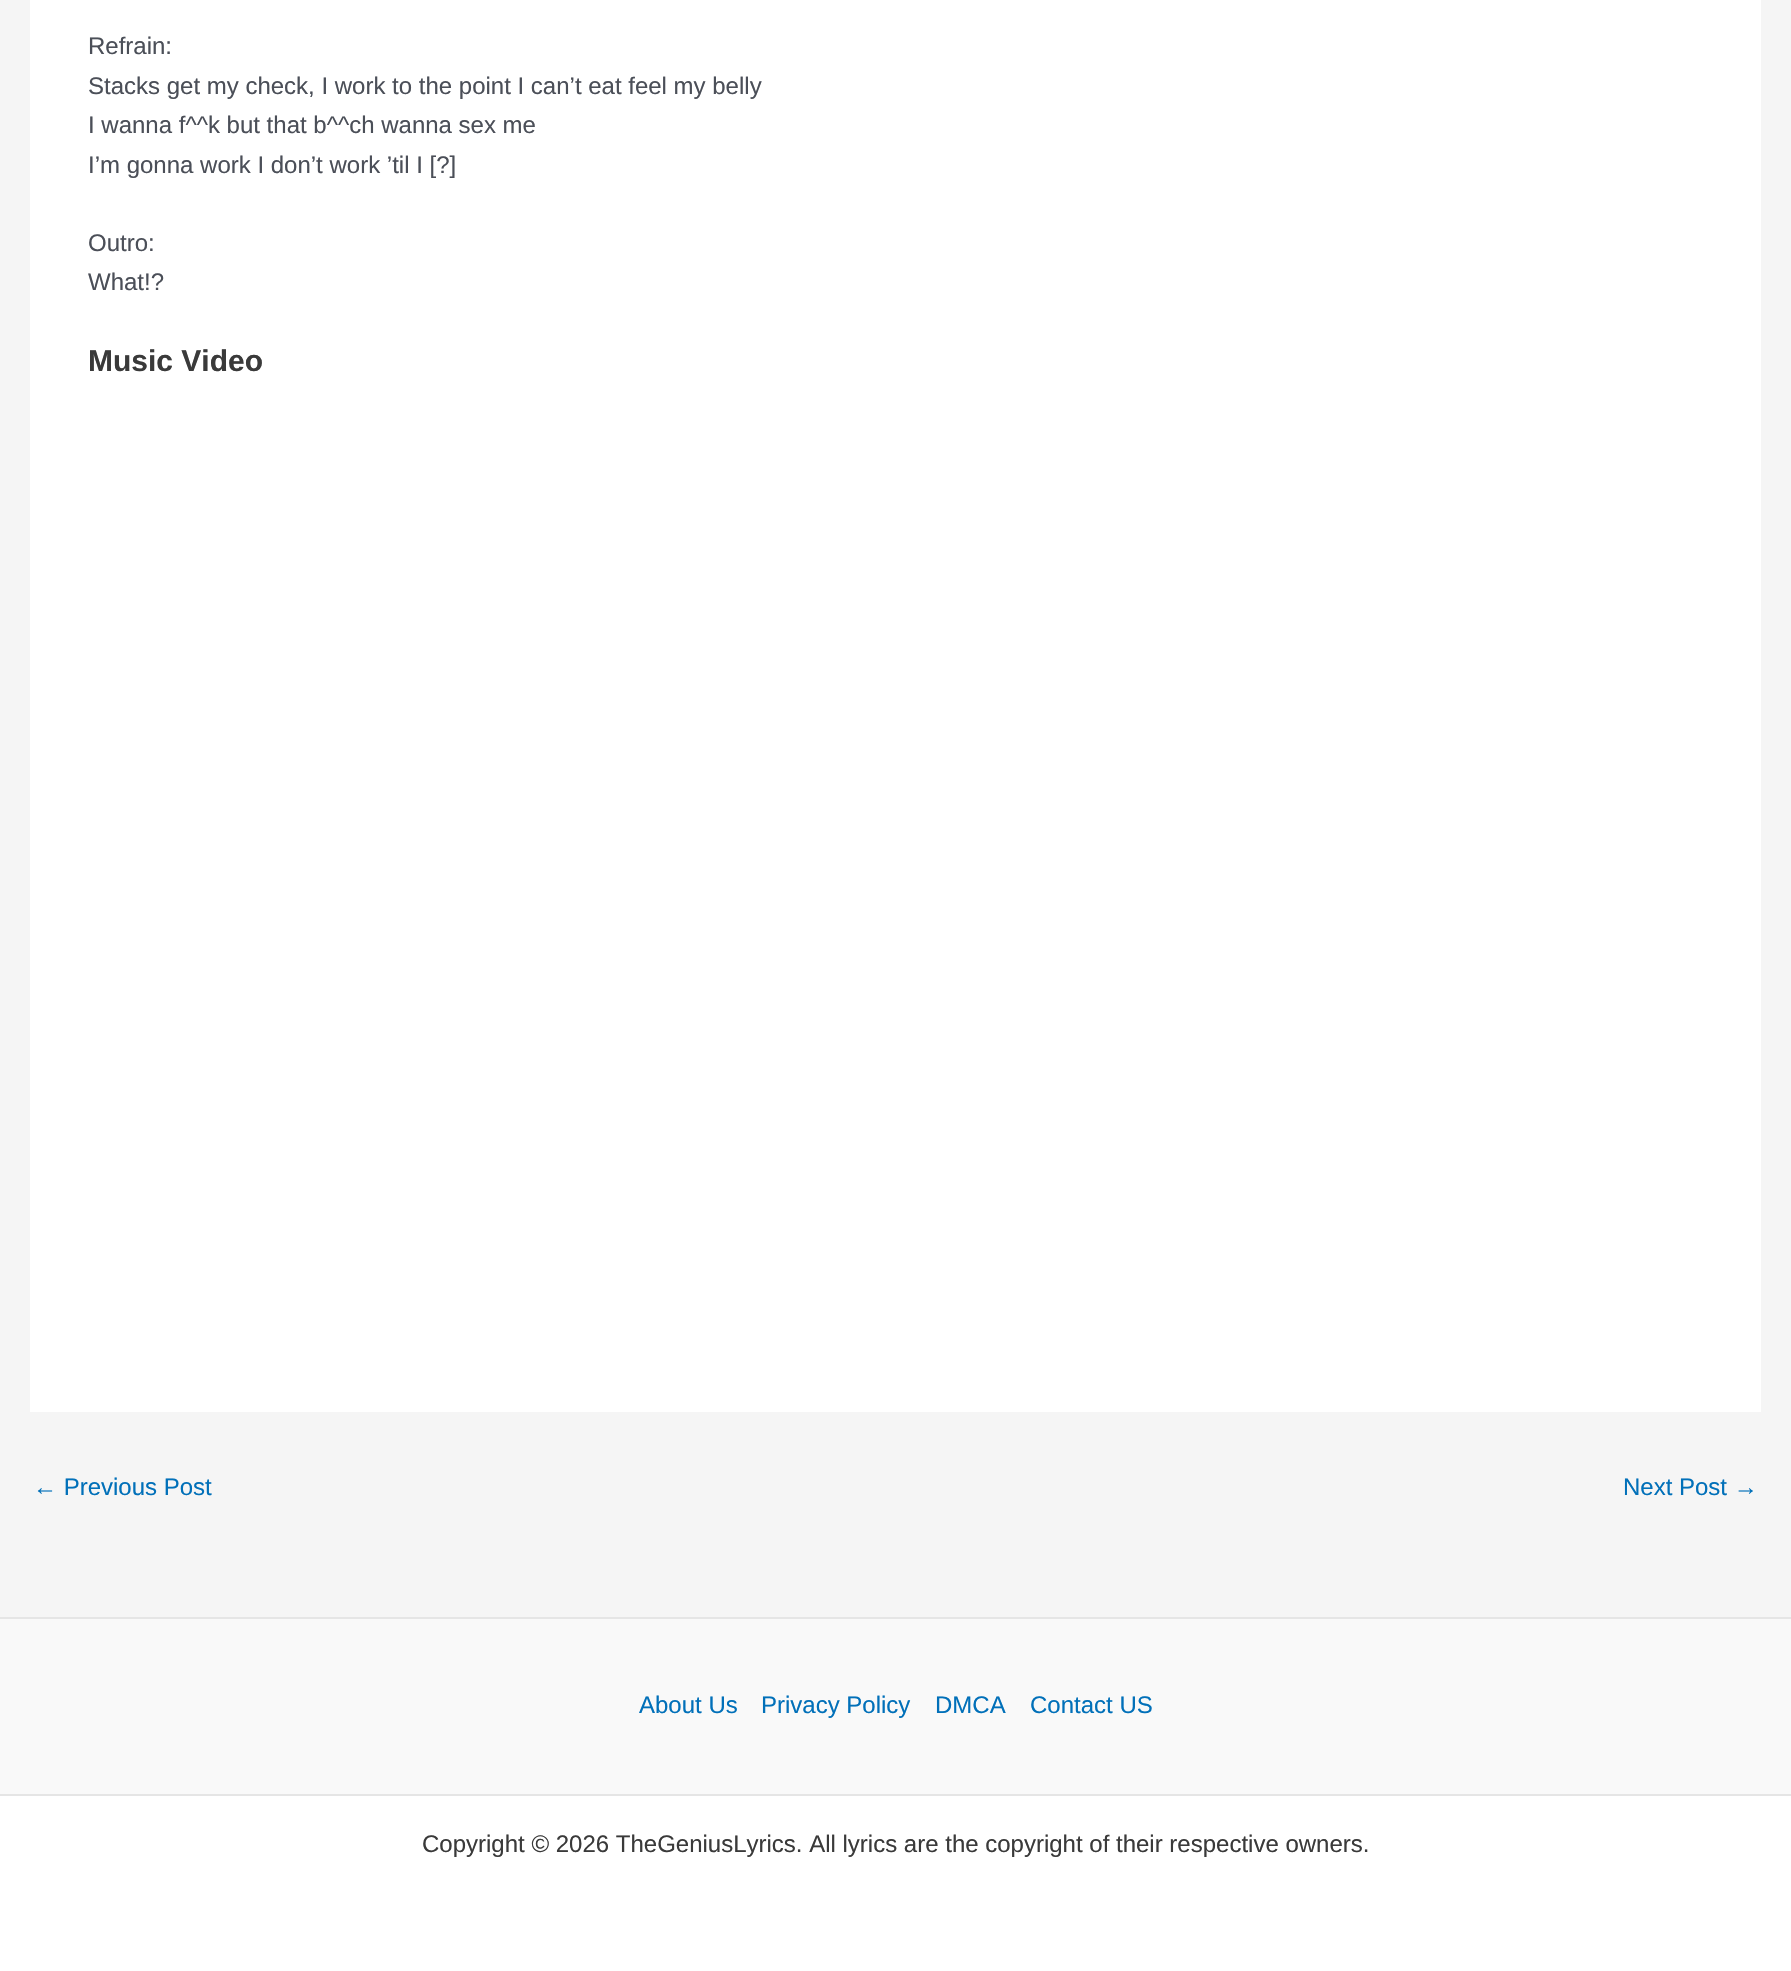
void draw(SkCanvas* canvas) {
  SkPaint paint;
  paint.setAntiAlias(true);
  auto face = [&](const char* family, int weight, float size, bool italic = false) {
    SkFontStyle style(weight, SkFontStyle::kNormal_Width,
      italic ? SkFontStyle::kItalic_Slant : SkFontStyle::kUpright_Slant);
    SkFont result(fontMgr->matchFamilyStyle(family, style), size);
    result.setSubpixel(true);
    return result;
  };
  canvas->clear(0xfff5f5f5);
  {
    const struct { float x, y, w, h; SkColor color; } items[] = {
      {30, 0, 1731, 1412, 0xffffffff},
      {0, 1619, 1791, 175, 0xfff9f9f9},
      {0, 1617, 1791, 2, 0xffe5e5e5},
      {0, 1796, 1791, 175, 0xffffffff},
      {0, 1794, 1791, 2, 0xffe5e5e5},
    };
    for (auto [x, y, w, h, color] : items) {
      paint.setColor(color);
      canvas->drawRect(SkRect::MakeXYWH(x, y, w, h), paint);
    }
  }
  auto f0 = face("Liberation Sans", 400, 24);
  paint.setColor(0xff4b4f58);
  {
    const struct { const char* s; float x, y; } items[] = {
      {"Refrain:", 88, 54},
      {"Stacks get my check, I work to the point I can’t eat feel my belly", 88, 94},
      {"I wanna f^^k but that b^^ch wanna sex me", 88, 133},
      {"I’m gonna work I don’t work ’til I [?]", 88, 173},
      {"Outro:", 88, 251},
      {"What!?", 88, 290},
    };
    for (auto [s, x, y] : items) {
      canvas->drawString(s, x, y, f0, paint);
    }
  }
  auto f1 = face("Liberation Sans", 700, 30);
  paint.setColor(0xff3a3a3a);
  canvas->drawString("Music Video", 88, 371, f1, paint);
  paint.setColor(0xff0170b9);
  {
    const struct { const char* s; float x, y; } items[] = {
      {"← Previous Post", 33, 1495},
      {"Next Post →", 1623, 1495},
      {"About Us", 639, 1713},
      {"Privacy Policy", 761, 1713},
      {"DMCA", 935, 1713},
      {"Contact US", 1030, 1713},
    };
    for (auto [s, x, y] : items) {
      canvas->drawString(s, x, y, f0, paint);
    }
  }
  paint.setColor(0xff3a3a3a);
  canvas->drawString("Copyright © 2026 TheGeniusLyrics. All lyrics are the copyright of their respective owners.", 422, 1852, f0, paint);
}
